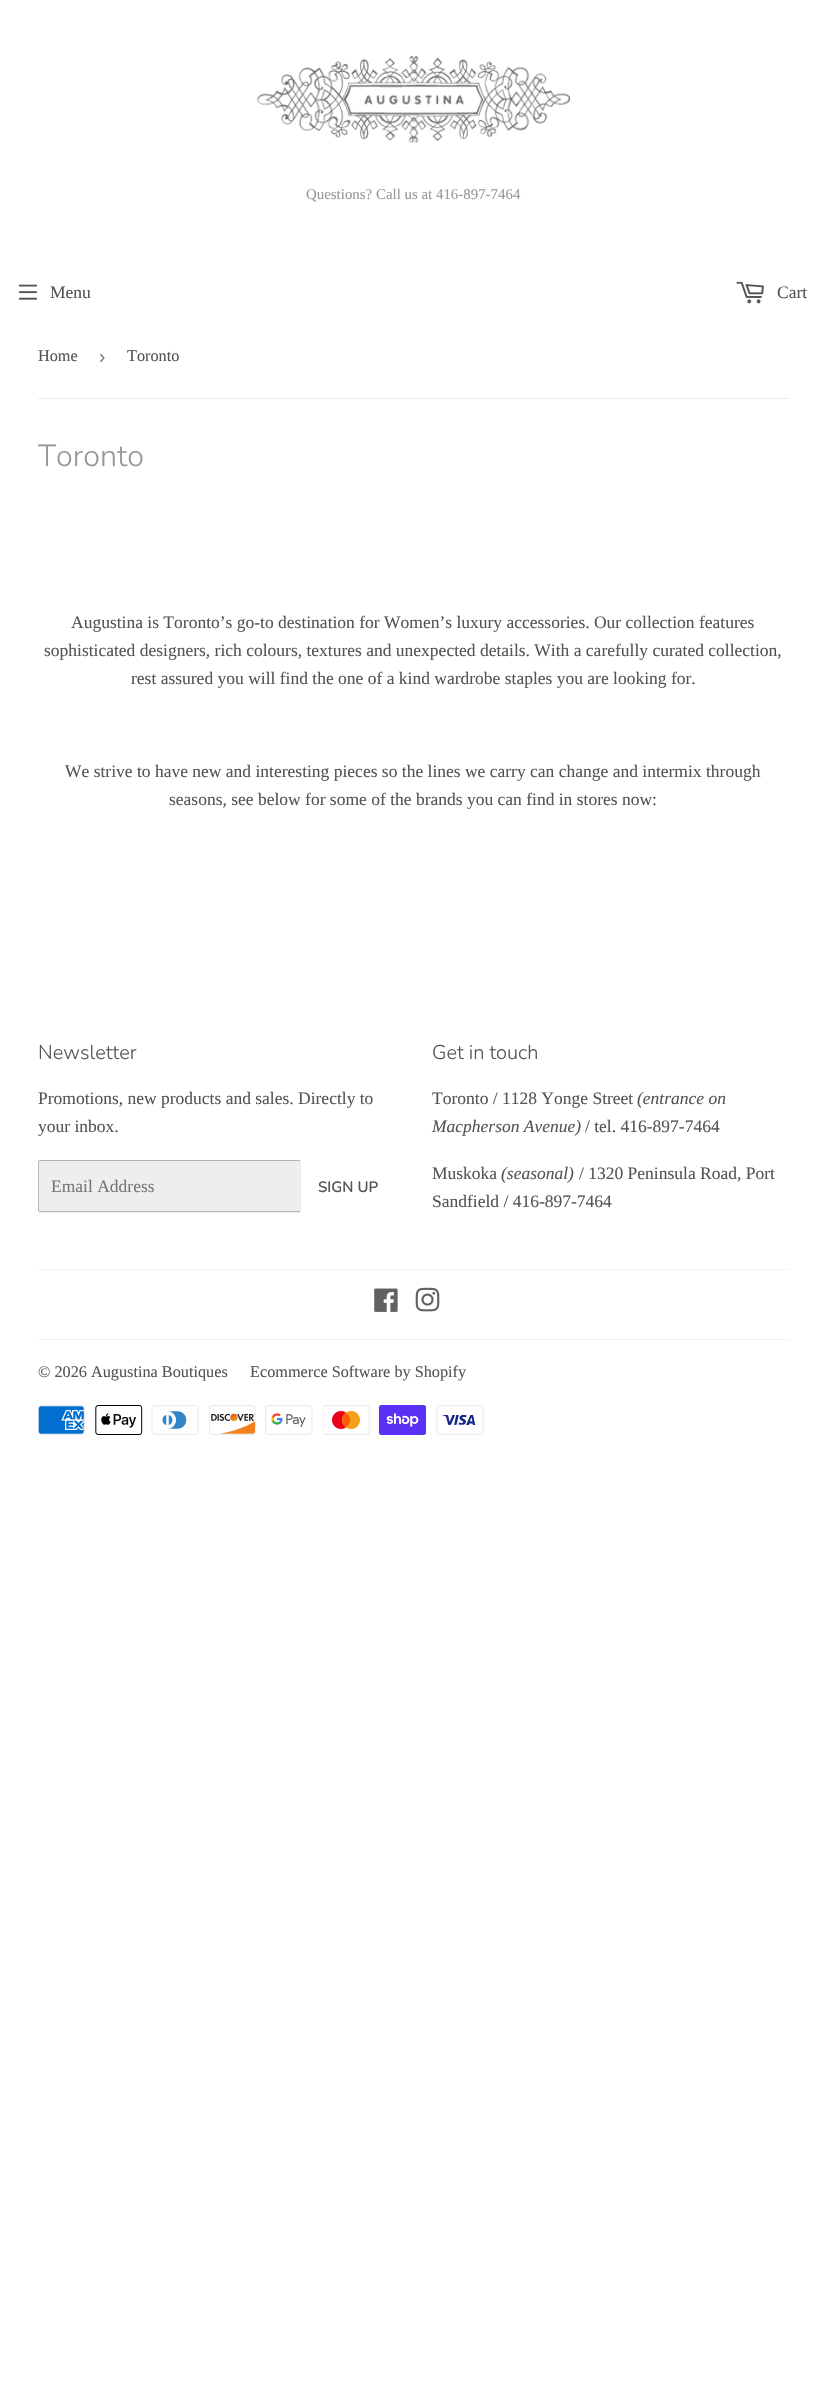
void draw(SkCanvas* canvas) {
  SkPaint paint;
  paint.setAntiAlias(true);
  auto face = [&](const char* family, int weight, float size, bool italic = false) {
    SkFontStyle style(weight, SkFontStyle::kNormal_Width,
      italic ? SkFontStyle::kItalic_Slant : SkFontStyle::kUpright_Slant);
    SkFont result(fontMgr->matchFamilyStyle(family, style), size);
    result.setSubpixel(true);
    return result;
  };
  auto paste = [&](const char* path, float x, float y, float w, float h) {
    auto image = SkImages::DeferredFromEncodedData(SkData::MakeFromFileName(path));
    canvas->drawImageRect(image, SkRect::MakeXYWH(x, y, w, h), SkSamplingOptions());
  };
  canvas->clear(0xffffffff);
  paste("img/1.png", 257, 56, 313, 87);
  paste("img/2.png", 18, 284, 20, 16);
  paste("img/3.png", 736, 281, 28, 23);
  paint.setColor(0xffedeaea);
  canvas->drawRect(SkRect::MakeXYWH(38, 398, 751, 1), paint);
  paint.setColor(0xffeeeeee);
  canvas->drawRoundRect(SkRect::MakeXYWH(38, 1160, 263, 53), 2.5f, 2.5f, paint);
  {
    const struct { float x, y, w, h; SkColor color; } items[] = {
      {39, 1160, 261, 1, 0xffbeb3b3},
      {39, 1211, 261, 1, 0xffbeb3b3},
      {38, 1161, 1, 50, 0xffbeb3b3},
      {38, 1269, 751, 1, 0xfff2f2f2},
    };
    for (auto [x, y, w, h, color] : items) {
      paint.setColor(color);
      canvas->drawRect(SkRect::MakeXYWH(x, y, w, h), paint);
    }
  }
  paste("img/4.png", 374, 1288, 24, 24);
  paste("img/5.png", 415, 1287, 25, 25);
  canvas->drawRect(SkRect::MakeXYWH(38, 1339, 751, 1), paint);
  paste("img/6.png", 38, 1405, 47, 30);
  paste("img/7.png", 95, 1405, 48, 30);
  paste("img/8.png", 151, 1405, 48, 30);
  paste("img/9.png", 209, 1405, 47, 30);
  paste("img/10.png", 265, 1405, 48, 30);
  paste("img/11.png", 323, 1405, 47, 30);
  paste("img/12.png", 379, 1405, 47, 30);
  paste("img/13.png", 436, 1405, 48, 30);
  auto f0 = face("Liberation Serif", 400, 14.9f);
  paint.setColor(0xff979797);
  canvas->drawString("Questions? Call us at 416-897-7464", 306, 199, f0, paint);
  auto f1 = face("Liberation Serif", 400, 17.5f);
  paint.setColor(0xff545454);
  canvas->drawString("Menu", 50, 298, f1, paint);
  canvas->drawString("Cart", 777, 298, f1, paint);
  auto f2 = face("Liberation Serif", 400, 16.25f);
  canvas->drawString("Home", 38, 361, f2, paint);
  auto f3 = face("Liberation Sans", 400, 19);
  paint.setColor(0xff767676);
  canvas->drawString("›", 99, 363, f3, paint);
  paint.setColor(0xff545454);
  canvas->drawString("Toronto", 127, 361, f2, paint);
  auto f4 = face("Nunito", 300, 30.5f);
  paint.setColor(0xff979797);
  canvas->drawString("Toronto", 38, 466, f4, paint);
  paint.setColor(0xff545454);
  {
    const struct { const char* s; float x, y; } items[] = {
      {"Augustina is Toronto’s go-to destination for Women’s luxury accessories. Our collection features", 71, 628},
      {"sophisticated designers, rich colours, textures and unexpected details. With a carefully curated collection,", 44, 656},
      {"rest assured you will find the one of a kind wardrobe staples you are looking for.", 131, 684},
      {"We strive to have new and interesting pieces so the lines we carry can change and intermix through", 65, 777},
      {"seasons, see below for some of the brands you can find in stores now:", 169, 805},
    };
    for (auto [s, x, y] : items) {
      canvas->drawString(s, x, y, f1, paint);
    }
  }
  auto f5 = face("Nunito", 300, 20);
  canvas->drawString("Newsletter", 38, 1059, f5, paint);
  canvas->drawString("Promotions, new products and sales. Directly to", 38, 1104, f1, paint);
  canvas->drawString("your inbox.", 38, 1132, f1, paint);
  paint.setColor(0xff767676);
  canvas->drawString("Email Address", 51, 1192, f1, paint);
  auto f6 = face("Nunito", 600, 15);
  paint.setColor(0xff545454);
  canvas->drawString("SIGN UP", 318, 1192, f6, paint);
  canvas->drawString("Get in touch", 432, 1059, f5, paint);
  canvas->drawString("Toronto / 1128 Yonge Street", 432, 1104, f1, paint);
  auto f7 = face("Liberation Serif", 400, 17.5f, true);
  canvas->drawString("(entrance on", 637, 1104, f7, paint);
  canvas->drawString("Macpherson Avenue)", 432, 1132, f7, paint);
  canvas->drawString("/ tel. 416-897-7464", 585, 1132, f1, paint);
  canvas->drawString("Muskoka", 432, 1179, f1, paint);
  canvas->drawString("(seasonal)", 501, 1179, f7, paint);
  canvas->drawString("/ 1320 Peninsula Road, Port", 579, 1179, f1, paint);
  canvas->drawString("Sandfield / 416-897-7464", 432, 1207, f1, paint);
  canvas->drawString("© 2026 Augustina Boutiques", 38, 1377, f2, paint);
  canvas->drawString("Ecommerce Software by Shopify", 250, 1377, f2, paint);
}
